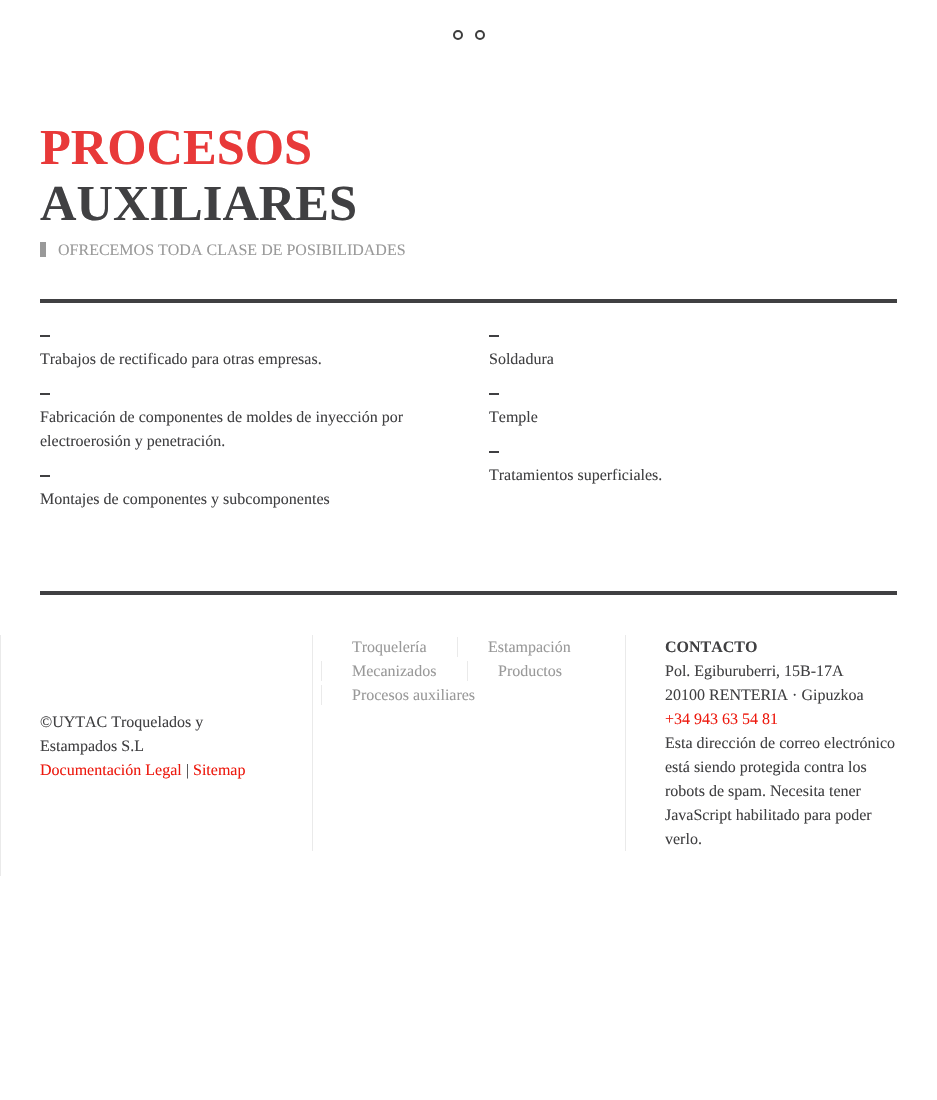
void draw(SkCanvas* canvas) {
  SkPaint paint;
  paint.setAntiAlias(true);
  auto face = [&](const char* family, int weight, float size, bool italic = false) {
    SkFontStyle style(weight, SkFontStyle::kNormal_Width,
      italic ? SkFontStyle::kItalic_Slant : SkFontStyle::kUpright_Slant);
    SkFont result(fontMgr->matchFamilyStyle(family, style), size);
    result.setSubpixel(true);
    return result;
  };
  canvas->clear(0xffffffff);
  paint.setStroke(true);
  paint.setStrokeWidth(2);
  paint.setColor(0xff3d3d3d);
  canvas->drawCircle(458, 35, 4, paint);
  canvas->drawCircle(480, 35, 4, paint);
  paint.setStroke(false);
  {
    const struct { float x, y, w, h; SkColor color; } items[] = {
      {40, 242, 6, 15, 0xff999999},
      {40, 299, 857, 4, 0xff404042},
      {40, 335, 10, 2, 0xff404042},
      {40, 393, 10, 2, 0xff404042},
      {40, 475, 10, 2, 0xff404042},
      {489, 335, 10, 2, 0xff404042},
      {489, 393, 10, 2, 0xff404042},
      {489, 451, 10, 2, 0xff404042},
      {40, 591, 857, 4, 0xff404042},
      {0, 635, 1, 241, 0xffeaeaea},
      {312, 635, 1, 216, 0xffeaeaea},
      {457, 637, 1, 20, 0xffeaeaea},
      {321, 661, 1, 20, 0xffeaeaea},
      {467, 661, 1, 20, 0xffeaeaea},
      {321, 685, 1, 20, 0xffeaeaea},
      {625, 635, 1, 216, 0xffeaeaea},
    };
    for (auto [x, y, w, h, color] : items) {
      paint.setColor(color);
      canvas->drawRect(SkRect::MakeXYWH(x, y, w, h), paint);
    }
  }
  auto f0 = face("Liberation Serif", 700, 50.5f);
  paint.setColor(0xffe83939);
  canvas->drawString("PROCESOS", 40, 164, f0, paint);
  paint.setColor(0xff404042);
  canvas->drawString("AUXILIARES", 40, 220, f0, paint);
  auto f1 = face("Liberation Serif", 400, 16);
  paint.setColor(0xff999999);
  canvas->drawString("OFRECEMOS TODA CLASE DE POSIBILIDADES", 58, 255, f1, paint);
  paint.setColor(0xff404042);
  {
    const struct { const char* s; float x, y; } items[] = {
      {"Trabajos de rectificado para otras empresas.", 40, 364},
      {"Fabricación de componentes de moldes de inyección por", 40, 422},
      {"electroerosión y penetración.", 40, 446},
      {"Montajes de componentes y subcomponentes", 40, 504},
      {"Soldadura", 489, 364},
      {"Temple", 489, 422},
      {"Tratamientos superficiales.", 489, 480},
      {"©UYTAC Troquelados y", 40, 727},
      {"Estampados S.L", 40, 751},
    };
    for (auto [s, x, y] : items) {
      canvas->drawString(s, x, y, f1, paint);
    }
  }
  paint.setColor(0xffed1a0f);
  canvas->drawString("Documentación Legal", 40, 775, f1, paint);
  paint.setColor(0xff404042);
  canvas->drawString("|", 186, 775, f1, paint);
  paint.setColor(0xffed1a0f);
  canvas->drawString("Sitemap", 193, 775, f1, paint);
  paint.setColor(0xff999999);
  {
    const struct { const char* s; float x, y; } items[] = {
      {"Troquelería", 352, 652},
      {"Estampación", 488, 652},
      {"Mecanizados", 352, 676},
      {"Productos", 498, 676},
      {"Procesos auxiliares", 352, 700},
    };
    for (auto [s, x, y] : items) {
      canvas->drawString(s, x, y, f1, paint);
    }
  }
  auto f2 = face("Liberation Serif", 700, 16);
  paint.setColor(0xff404042);
  canvas->drawString("CONTACTO", 665, 652, f2, paint);
  canvas->drawString("Pol. Egiburuberri, 15B-17A", 665, 676, f1, paint);
  canvas->drawString("20100 RENTERIA · Gipuzkoa", 665, 700, f1, paint);
  paint.setColor(0xffed1a0f);
  canvas->drawString("+34 943 63 54 81", 665, 724, f1, paint);
  paint.setColor(0xff404042);
  {
    const struct { const char* s; float x, y; } items[] = {
      {"Esta dirección de correo electrónico", 665, 748},
      {"está siendo protegida contra los", 665, 772},
      {"robots de spam. Necesita tener", 665, 796},
      {"JavaScript habilitado para poder", 665, 820},
      {"verlo.", 665, 844},
    };
    for (auto [s, x, y] : items) {
      canvas->drawString(s, x, y, f1, paint);
    }
  }
}
